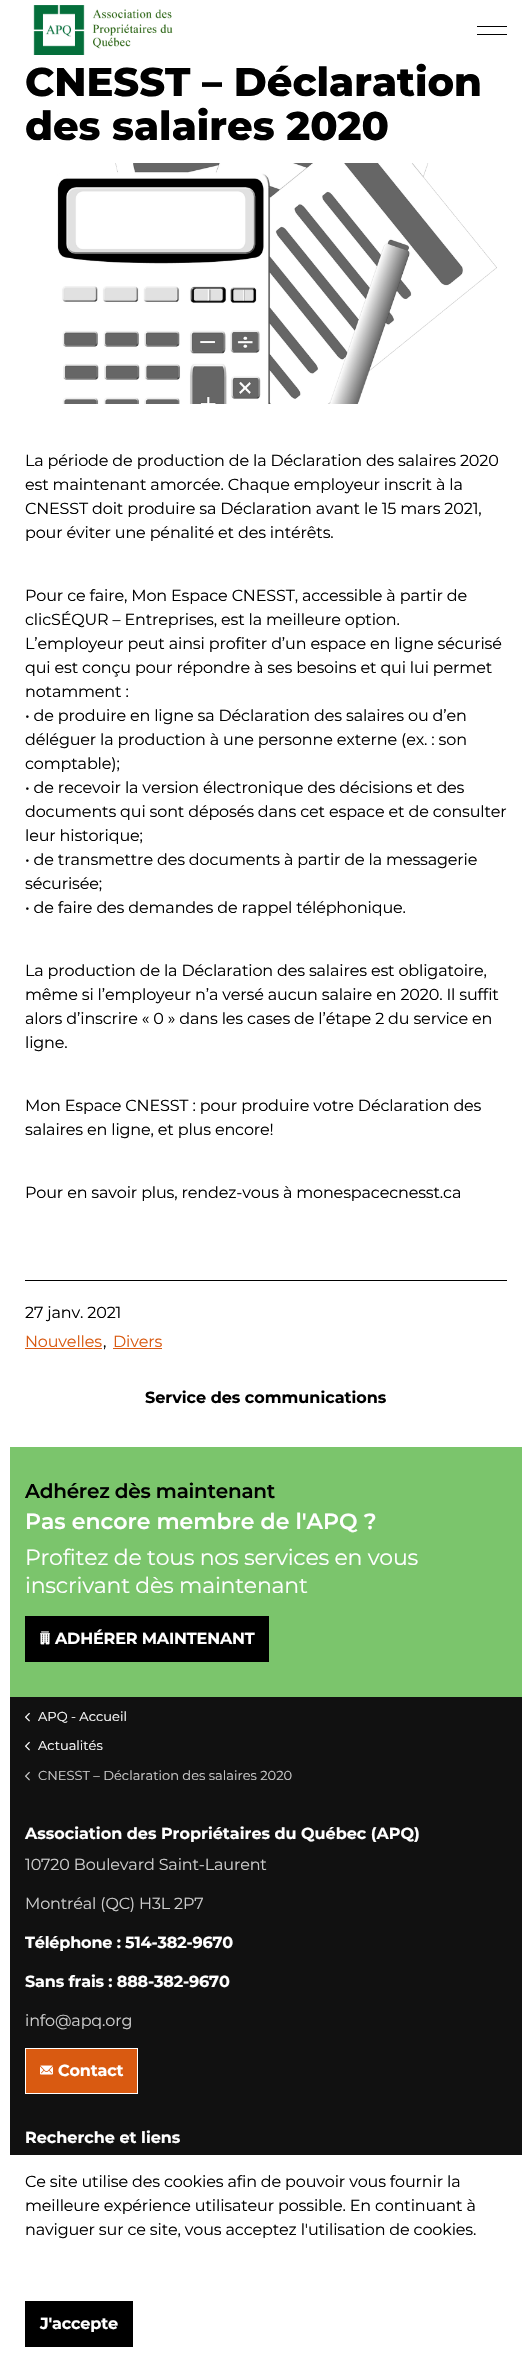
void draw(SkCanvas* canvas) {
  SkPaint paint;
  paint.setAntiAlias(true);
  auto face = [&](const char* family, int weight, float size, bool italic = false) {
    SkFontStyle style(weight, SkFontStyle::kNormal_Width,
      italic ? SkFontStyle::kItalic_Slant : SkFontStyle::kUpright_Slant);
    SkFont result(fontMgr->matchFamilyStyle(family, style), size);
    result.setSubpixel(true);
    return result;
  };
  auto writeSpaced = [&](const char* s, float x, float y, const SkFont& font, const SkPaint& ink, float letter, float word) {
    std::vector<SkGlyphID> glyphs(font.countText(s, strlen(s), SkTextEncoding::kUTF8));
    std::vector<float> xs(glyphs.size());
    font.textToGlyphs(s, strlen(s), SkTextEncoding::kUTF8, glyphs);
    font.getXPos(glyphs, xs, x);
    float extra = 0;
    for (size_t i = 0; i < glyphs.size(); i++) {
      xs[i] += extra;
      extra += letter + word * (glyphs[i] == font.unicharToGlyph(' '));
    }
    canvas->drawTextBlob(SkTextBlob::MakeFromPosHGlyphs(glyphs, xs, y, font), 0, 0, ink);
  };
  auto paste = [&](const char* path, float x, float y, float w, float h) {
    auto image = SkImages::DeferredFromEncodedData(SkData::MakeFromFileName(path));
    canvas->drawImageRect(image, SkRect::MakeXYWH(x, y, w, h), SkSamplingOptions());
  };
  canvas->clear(0xffffffff);
  paste("img/1.png", 33, 5, 140, 50);
  paint.setColor(0xff000000);
  canvas->drawRect(SkRect::MakeXYWH(477, 26, 30, 1), paint);
  canvas->drawRect(SkRect::MakeXYWH(477, 34, 30, 1), paint);
  paste("img/2.png", 57, 163, 440, 241);
  {
    const struct { float x, y, w, h; SkColor color; } items[] = {
      {25, 1280, 482, 1, 0xff000000},
      {25, 1348, 77, 1, 0xffd95a11},
      {113, 1348, 49, 1, 0xffd95a11},
      {10, 1447, 512, 250, 0xff7bc56c},
      {25, 1616, 244, 46, 0xff000000},
    };
    for (auto [x, y, w, h, color] : items) {
      paint.setColor(color);
      canvas->drawRect(SkRect::MakeXYWH(x, y, w, h), paint);
    }
  }
  paste("img/3.png", 40, 1631, 10, 14);
  paint.setColor(0xff111111);
  canvas->drawRect(SkRect::MakeXYWH(10, 1697, 512, 458), paint);
  paste("img/4.png", 25, 1712, 5, 10);
  paste("img/4.png", 25, 1741, 5, 10);
  paste("img/5.png", 25, 1771, 5, 10);
  paint.setColor(0xffd95a11);
  canvas->drawRect(SkRect::MakeXYWH(25.5f, 2048.5f, 112, 45), paint);
  paint.setStroke(true);
  paint.setStrokeWidth(1);
  paint.setColor(0xffffffff);
  canvas->drawRect(SkRect::MakeXYWH(25.5f, 2048.5f, 112, 45), paint);
  paste("img/6.png", 40, 2065, 13, 10);
  paint.setStroke(false);
  paint.setColor(0xff000000);
  canvas->drawRect(SkRect::MakeXYWH(25, 2301, 108, 46), paint);
  auto f0 = face("Montserrat", 800, 40);
  canvas->drawString("CNESST – Déclaration", 25, 96, f0, paint);
  canvas->drawString("des salaires 2020", 25, 140, f0, paint);
  auto f1 = face("Montserrat", 400, 16);
  {
    const struct { const char* s; float x, y; } items[] = {
      {"La période de production de la Déclaration des salaires 2020", 25, 466},
      {"est maintenant amorcée. Chaque employeur inscrit à la", 25, 490},
      {"CNESST doit produire sa Déclaration avant le 15 mars 2021,", 25, 514},
      {"pour éviter une pénalité et des intérêts.", 25, 538},
      {"Pour ce faire, Mon Espace CNESST, accessible à partir de", 25, 601},
      {"clicSÉQUR – Entreprises, est la meilleure option.", 25, 625},
      {"L’employeur peut ainsi profiter d’un espace en ligne sécurisé", 25, 649},
      {"qui est conçu pour répondre à ses besoins et qui lui permet", 25, 673},
      {"notamment :", 25, 697},
      {"• de produire en ligne sa Déclaration des salaires ou d’en", 25, 721},
      {"déléguer la production à une personne externe (ex. : son", 25, 745},
      {"comptable);", 25, 769},
      {"• de recevoir la version électronique des décisions et des", 25, 793},
      {"documents qui sont déposés dans cet espace et de consulter", 25, 817},
      {"leur historique;", 25, 841},
      {"• de transmettre des documents à partir de la messagerie", 25, 865},
      {"sécurisée;", 25, 889},
      {"• de faire des demandes de rappel téléphonique.", 25, 913},
      {"La production de la Déclaration des salaires est obligatoire,", 25, 976},
      {"même si l’employeur n’a versé aucun salaire en 2020. Il suffit", 25, 1000},
      {"alors d’inscrire « 0 » dans les cases de l’étape 2 du service en", 25, 1024},
      {"ligne.", 25, 1048},
      {"Mon Espace CNESST : pour produire votre Déclaration des", 25, 1111},
      {"salaires en ligne, et plus encore!", 25, 1135},
      {"Pour en savoir plus, rendez-vous à monespacecnesst.ca", 25, 1198},
      {"27 janv. 2021", 25, 1318},
    };
    for (auto [s, x, y] : items) {
      writeSpaced(s, x, y, f1, paint, -0.15f, 0);
    }
  }
  paint.setColor(0xffd95a11);
  writeSpaced("Nouvelles", 25, 1347, f1, paint, -0.15f, 0);
  paint.setColor(0xff000000);
  writeSpaced(",", 103, 1347, f1, paint, -0.15f, 0);
  paint.setColor(0xffd95a11);
  writeSpaced("Divers", 113, 1347, f1, paint, -0.15f, 0);
  auto f2 = face("Montserrat", 700, 16);
  paint.setColor(0xff000000);
  canvas->drawString("Service des communications", 145, 1403, f2, paint);
  auto f3 = face("Montserrat", 600, 20);
  writeSpaced("Adhérez dès maintenant", 25, 1498, f3, paint, -0.25f, 0);
  auto f4 = face("Montserrat", 600, 22);
  paint.setColor(0xffffffff);
  canvas->drawString("Pas encore membre de l'APQ ?", 25, 1529, f4, paint);
  auto f5 = face("Montserrat", 400, 22);
  writeSpaced("Profitez de tous nos services en vous", 25, 1565, f5, paint, -0.25f, 0);
  writeSpaced("inscrivant dès maintenant", 25, 1593, f5, paint, -0.25f, 0);
  writeSpaced("ADHÉRER MAINTENANT", 55, 1644, f2, paint, -0.15f, 0);
  auto f6 = face("Montserrat", 400, 13);
  canvas->drawString("APQ - Accueil", 38, 1721, f6, paint);
  canvas->drawString("Actualités", 38, 1750, f6, paint);
  paint.setColor(0xffcccccc);
  canvas->drawString("CNESST – Déclaration des salaires 2020", 38, 1780, f6, paint);
  paint.setColor(0xffffffff);
  canvas->drawString("Association des Propriétaires du Québec (APQ)", 25, 1839, f2, paint);
  paint.setColor(0xffcccccc);
  writeSpaced("10720 Boulevard Saint-Laurent", 25, 1870, f1, paint, -0.15f, 0);
  writeSpaced("Montréal (QC) H3L 2P7", 25, 1909, f1, paint, -0.15f, 0);
  paint.setColor(0xffffffff);
  writeSpaced("Téléphone : 514-382-9670", 25, 1948, f2, paint, -0.15f, 0);
  writeSpaced("Sans frais : 888-382-9670", 25, 1987, f2, paint, -0.15f, 0);
  paint.setColor(0xffcccccc);
  writeSpaced("info@apq.org", 25, 2026, f1, paint, -0.15f, 0);
  paint.setColor(0xffffffff);
  writeSpaced("Contact", 58, 2076, f2, paint, -0.15f, 0);
  canvas->drawString("Recherche et liens", 25, 2143, f2, paint);
  paint.setColor(0xff000000);
  {
    const struct { const char* s; float x, y; } items[] = {
      {"Ce site utilise des cookies afin de pouvoir vous fournir la", 25, 2187},
      {"meilleure expérience utilisateur possible. En continuant à", 25, 2211},
      {"naviguer sur ce site, vous acceptez l'utilisation de cookies.", 25, 2235},
    };
    for (auto [s, x, y] : items) {
      writeSpaced(s, x, y, f1, paint, -0.15f, 0);
    }
  }
  paint.setColor(0xffffffff);
  writeSpaced("J'accepte", 40, 2329, f2, paint, -0.15f, 0);
}
